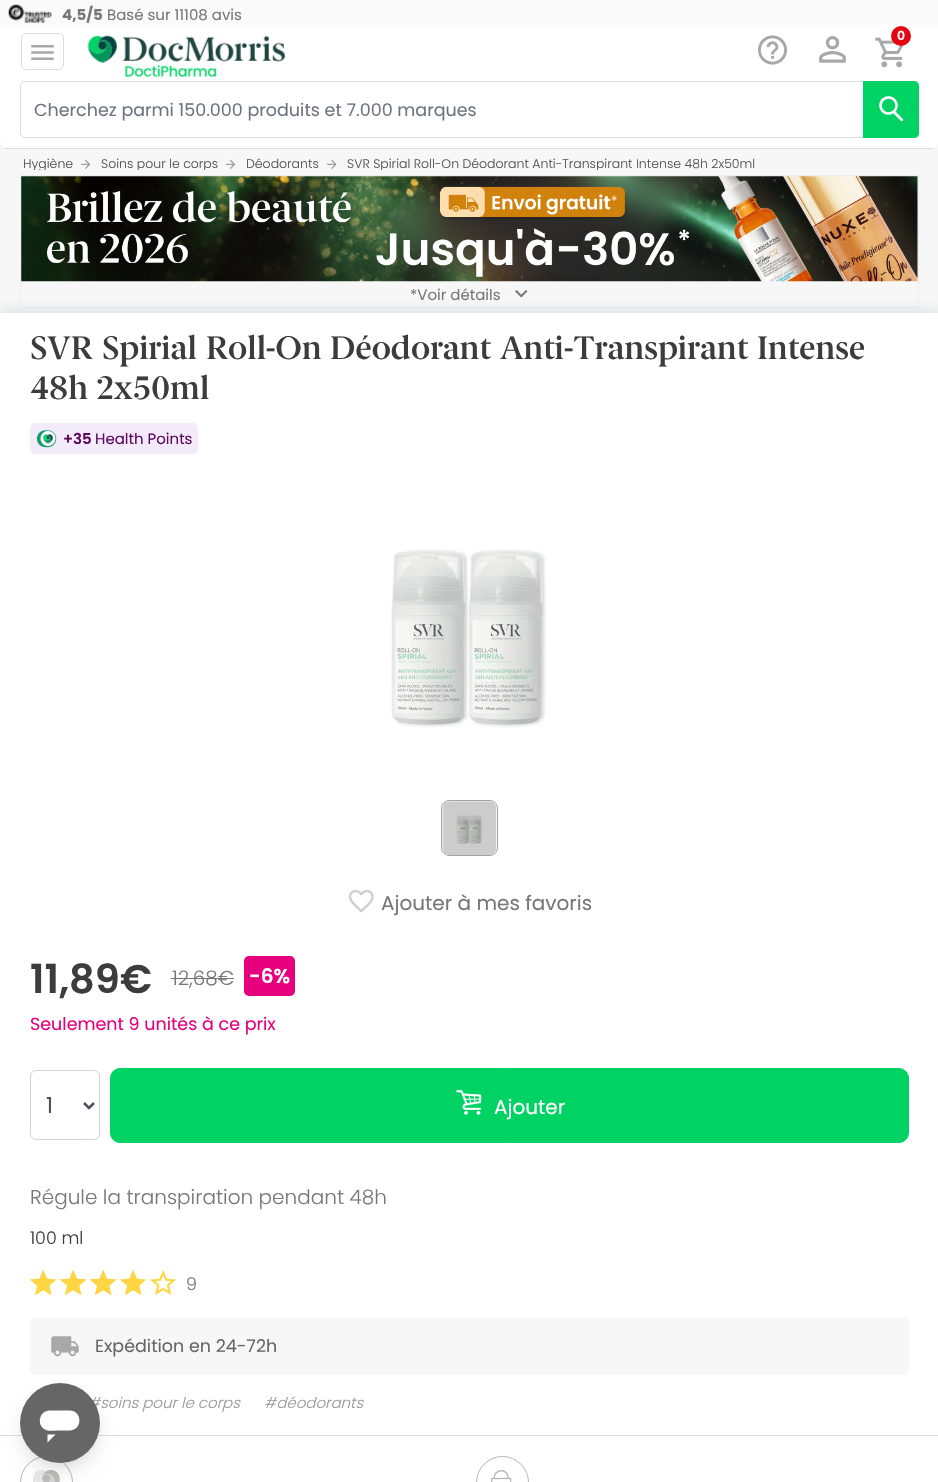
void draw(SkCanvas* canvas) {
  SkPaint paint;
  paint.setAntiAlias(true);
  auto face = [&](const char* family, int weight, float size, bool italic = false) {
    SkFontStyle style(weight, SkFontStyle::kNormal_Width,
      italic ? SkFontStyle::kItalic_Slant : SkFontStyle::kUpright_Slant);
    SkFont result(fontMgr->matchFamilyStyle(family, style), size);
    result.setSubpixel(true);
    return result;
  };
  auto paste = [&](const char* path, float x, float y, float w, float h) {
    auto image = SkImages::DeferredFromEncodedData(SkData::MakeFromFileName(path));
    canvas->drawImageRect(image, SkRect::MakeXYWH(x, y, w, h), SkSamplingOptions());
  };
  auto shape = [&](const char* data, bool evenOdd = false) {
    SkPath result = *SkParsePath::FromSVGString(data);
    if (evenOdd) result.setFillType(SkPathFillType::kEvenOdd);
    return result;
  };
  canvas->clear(0xfff7f7f7);
  paint.setColor(0xffffffff);
  canvas->drawPath(shape("M0 0H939V139C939 144.5 934.5 149 929 149H10C4.5 149 0 144.5 0 139Z"), paint);
  paint.setColor(0xffdddddd);
  canvas->drawRect(SkRect::MakeXYWH(5, 148, 929, 1), paint);
  paint.setColor(0xfffafafa);
  canvas->drawRect(SkRect::MakeXYWH(0, 0, 938, 25), paint);
  paste("img/1.png", 8, 4, 44, 19);
  paint.setStroke(true);
  paint.setStrokeWidth(1);
  paint.setColor(0xffdddddd);
  canvas->drawRoundRect(SkRect::MakeXYWH(21.5f, 33.5f, 42, 36), 4.5f, 4.5f, paint);
  paste("img/2.png", 31, 45, 23, 15);
  paste("img/3.png", 87, 35, 199, 42);
  paste("img/4.png", 758, 35, 30, 30);
  paste("img/5.png", 819, 36, 27, 27);
  paste("img/6.png", 875, 37, 29, 31);
  paint.setStroke(false);
  paint.setColor(0xffe30613);
  canvas->drawCircle(901, 36, 10, paint);
  paint.setStroke(true);
  paint.setColor(0xffdddddd);
  canvas->drawPath(shape("M25 81.5H863.5V137.5H25C22.5 137.5 20.5 135.5 20.5 133V86C20.5 83.5 22.5 81.5 25 81.5Z"), paint);
  paint.setStroke(false);
  paint.setColor(0xff00d264);
  canvas->drawPath(shape("M863 81H914C917 81 919 83 919 86V133C919 136 917 138 914 138H863Z"), paint);
  paste("img/7.png", 879, 96, 25, 26);
  paste("img/8.png", 80, 159, 11, 10);
  paste("img/8.png", 225, 159, 11, 10);
  paste("img/9.png", 327, 159, 10, 10);
  paint.setStroke(true);
  paint.setColor(0xffededed);
  canvas->drawRect(SkRect::MakeXYWH(20.5f, 175.5f, 898, 132), paint);
  paste("img/10.png", 21, 176, 897, 106);
  paint.setStroke(false);
  paint.setColor(0x336e7781);
  paint.setMaskFilter(SkMaskFilter::MakeBlur(kNormal_SkBlurStyle, 6.5f));
  canvas->drawRect(SkRect::MakeXYWH(-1, 311, 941, 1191), paint);
  paint.setMaskFilter(nullptr);
  paste("img/11.png", 515, 290, 13, 8);
  paint.setColor(0xffffffff);
  canvas->drawRect(SkRect::MakeXYWH(0, 313, 938, 1169), paint);
  paint.setColor(0xfff3eafa);
  canvas->drawRoundRect(SkRect::MakeXYWH(30.5f, 423.5f, 167, 30), 4.5f, 4.5f, paint);
  paint.setStroke(true);
  canvas->drawRoundRect(SkRect::MakeXYWH(30.5f, 423.5f, 167, 30), 4.5f, 4.5f, paint);
  paste("img/12.png", 36, 430, 21, 18);
  paste("img/13.png", 391, 549, 155, 179);
  paint.setColor(0xffa3a3a3);
  canvas->drawRoundRect(SkRect::MakeXYWH(441.5f, 800.5f, 56, 55), 7.5f, 7.5f, paint);
  paste("img/14.png", 442, 801, 55, 54);
  paste("img/15.png", 348, 889, 26, 24);
  paint.setStroke(false);
  paint.setColor(0xffe6007e);
  canvas->drawRoundRect(SkRect::MakeXYWH(244, 956, 51, 40), 5, 5, paint);
  paint.setStroke(true);
  paint.setColor(0xffced4da);
  canvas->drawRoundRect(SkRect::MakeXYWH(30.5f, 1070.5f, 69, 69), 5.5f, 5.5f, paint);
  paint.setStrokeWidth(2.5f);
  paint.setColor(0xff495057);
  canvas->drawPath(shape("M84 1103L89 1108L94 1103"), paint);
  paint.setStroke(false);
  paint.setColor(0xff00d264);
  canvas->drawRoundRect(SkRect::MakeXYWH(110.5f, 1068.5f, 798, 74), 9.5f, 9.5f, paint);
  paint.setStroke(true);
  paint.setStrokeWidth(1);
  canvas->drawRoundRect(SkRect::MakeXYWH(110.5f, 1068.5f, 798, 74), 9.5f, 9.5f, paint);
  paste("img/16.png", 456, 1090, 26, 25);
  paste("img/17.png", 30, 1270, 26, 25);
  paste("img/17.png", 60, 1270, 26, 25);
  paste("img/17.png", 90, 1270, 26, 25);
  paste("img/17.png", 120, 1270, 26, 25);
  paste("img/17.png", 150, 1270, 26, 25);
  paste("img/18.png", 30, 1270, 26, 25);
  paste("img/18.png", 60, 1270, 26, 25);
  paste("img/18.png", 90, 1270, 26, 25);
  paste("img/19.png", 120, 1270, 24, 25);
  paint.setStroke(false);
  paint.setColor(0xfff7f7f7);
  canvas->drawRoundRect(SkRect::MakeXYWH(30, 1318, 879, 57), 5, 5, paint);
  paste("img/20.png", 51, 1336, 28, 21);
  paint.setColor(0xffdddddd);
  canvas->drawRect(SkRect::MakeXYWH(0, 1435, 938, 1), paint);
  paint.setStroke(true);
  paint.setColor(0xffb5b5b5);
  canvas->drawCircle(46.5f, 1482.5f, 26, paint);
  paste("img/21.png", 33, 1470, 27, 12);
  canvas->drawCircle(502.5f, 1482.5f, 26, paint);
  paste("img/22.png", 491, 1470, 21, 12);
  paint.setStroke(false);
  paint.setColor(0x0d000000);
  paint.setMaskFilter(SkMaskFilter::MakeBlur(kNormal_SkBlurStyle, 4));
  canvas->drawRoundRect(SkRect::MakeXYWH(23, 1390, 75, 75), 37.5f, 37.5f, paint);
  paint.setMaskFilter(nullptr);
  paint.setColor(0x1a000000);
  paint.setMaskFilter(SkMaskFilter::MakeBlur(kNormal_SkBlurStyle, 9.5f));
  canvas->drawRoundRect(SkRect::MakeXYWH(24, 1399, 72, 72), 36, 36, paint);
  paint.setMaskFilter(nullptr);
  auto f0 = face("Poppins", 700, 15);
  paint.setColor(0xff777777);
  canvas->drawString("4,5/5", 62, 20, f0, paint);
  auto f1 = face("Poppins", 400, 15);
  canvas->drawString("Basé sur 11108 avis", 107, 20, f1, paint);
  auto f2 = face("Poppins", 600, 12.5f);
  paint.setColor(0xffffffff);
  canvas->drawString("0", 897, 40, f2, paint);
  auto f3 = face("Poppins", 400, 17.5f);
  paint.setColor(0xff6c757d);
  canvas->drawString("Cherchez parmi 150.000 produits et 7.000 marques", 34, 116, f3, paint);
  canvas->save();
  canvas->clipRect(SkRect::MakeXYWH(20, 153, 899, 17));
  auto f4 = face("Poppins", 300, 12.5f);
  paint.setColor(0xff555555);
  canvas->drawString("Hygiène", 23, 168, f4, paint);
  canvas->drawString("Soins pour le corps", 101, 168, f4, paint);
  canvas->restore();
  canvas->drawString("Déodorants", 246, 168, f4, paint);
  canvas->save();
  canvas->clipRect(SkRect::MakeXYWH(20, 153, 899, 17));
  canvas->drawString("SVR Spirial Roll-On Déodorant Anti-Transpirant Intense 48h 2x50ml", 347, 168, f4, paint);
  canvas->restore();
  paint.setColor(0xff777777);
  canvas->drawString("*Voir détails", 410, 300, f1, paint);
  auto f5 = face("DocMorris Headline", 400, 32.5f);
  paint.setColor(0xff3c3c3c);
  {
    const struct { const char* s; float x, y; } items[] = {
      {"SVR", 30, 359},
      {"Spirial", 102, 359},
      {"Roll-On", 206, 359},
      {"Déodorant", 330, 359},
      {"Anti-Transpirant", 500, 359},
      {"Intense", 757, 359},
      {"48h", 30, 399},
      {"2x50ml", 97, 399},
    };
    for (auto [s, x, y] : items) {
      canvas->drawString(s, x, y, f5, paint);
    }
  }
  auto f6 = face("Poppins", 600, 15);
  paint.setColor(0xff5e095c);
  canvas->drawString("+35", 63, 444, f6, paint);
  canvas->drawString("Health Points", 95, 444, f1, paint);
  auto f7 = face("Poppins", 400, 20);
  paint.setColor(0xff777777);
  canvas->drawString("Ajouter à mes favoris", 381, 910, f7, paint);
  auto f8 = face("Poppins", 600, 40);
  paint.setColor(0xff3c3c3c);
  canvas->drawString("11,89€", 30, 993, f8, paint);
  auto f9 = face("Poppins", 300, 20);
  paint.setColor(0xff777777);
  canvas->drawString("12,68€", 172, 985, f9, paint);
  paint.setColor(0xff757575);
  canvas->drawRect(SkRect::MakeXYWH(171, 978, 63, 1), paint);
  auto f10 = face("Poppins", 600, 20);
  paint.setColor(0xffffffff);
  canvas->drawString("-6%", 249, 983, f10, paint);
  paint.setColor(0xffe6007e);
  canvas->drawString("Seulement 9 unités à ce prix", 30, 1030, f3, paint);
  auto f11 = face("Poppins", 400, 22);
  paint.setColor(0xff495057);
  canvas->drawString("1", 46, 1113, f11, paint);
  paint.setColor(0xffffffff);
  canvas->drawString("Ajouter", 494, 1114, f7, paint);
  paint.setColor(0xff777777);
  canvas->drawString("Régule la transpiration pendant 48h", 30, 1204, f9, paint);
  auto f12 = face("Poppins", 300, 17.5f);
  paint.setColor(0xff3c3c3c);
  canvas->drawString("100 ml", 30, 1244, f12, paint);
  paint.setColor(0xff777777);
  canvas->drawString("9", 186, 1290, f12, paint);
  paint.setColor(0xff666666);
  canvas->drawString("Expédition en 24-72h", 95, 1352, f3, paint);
  auto f13 = face("Poppins", 300, 15, true);
  paint.setColor(0xff999999);
  canvas->drawString("#soins pour le corps", 88, 1408, f13, paint);
  canvas->drawString("#déodorants", 264, 1408, f13, paint);
  paint.setColor(0xff666666);
  canvas->drawCircle(60, 1423, 40, paint);
  paint.setColor(0xffffffff);
  canvas->drawPath(shape("M55.5 1434.5L47.5 1442.5V1434.5ZM69.5 1410.5C82.5 1410.5 83 1430 69.5 1430.5H56.5C53 1430.5 49 1431.5 46 1430C36 1426 39 1410.5 49.5 1410.5Z"), paint);
}
